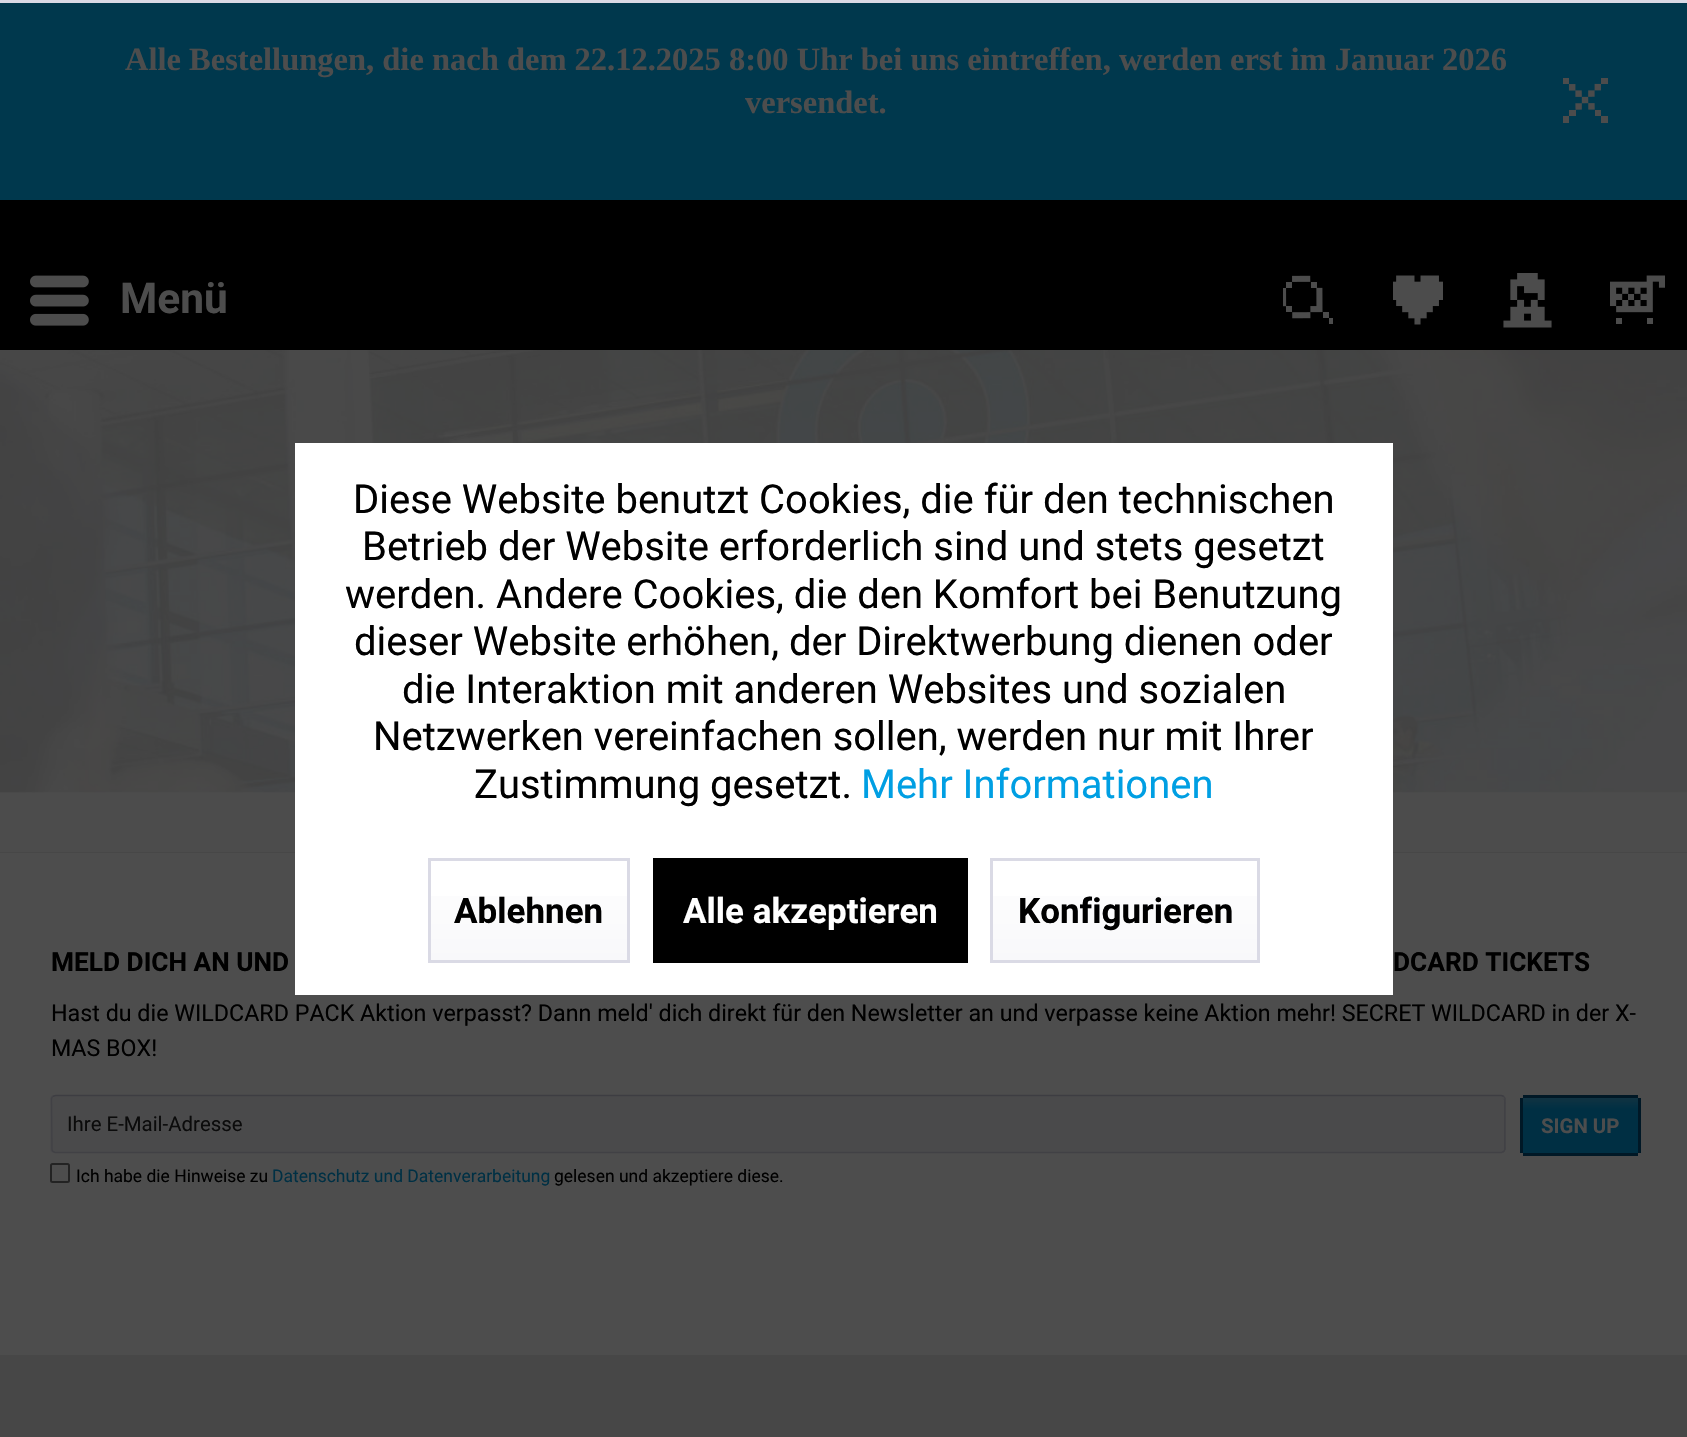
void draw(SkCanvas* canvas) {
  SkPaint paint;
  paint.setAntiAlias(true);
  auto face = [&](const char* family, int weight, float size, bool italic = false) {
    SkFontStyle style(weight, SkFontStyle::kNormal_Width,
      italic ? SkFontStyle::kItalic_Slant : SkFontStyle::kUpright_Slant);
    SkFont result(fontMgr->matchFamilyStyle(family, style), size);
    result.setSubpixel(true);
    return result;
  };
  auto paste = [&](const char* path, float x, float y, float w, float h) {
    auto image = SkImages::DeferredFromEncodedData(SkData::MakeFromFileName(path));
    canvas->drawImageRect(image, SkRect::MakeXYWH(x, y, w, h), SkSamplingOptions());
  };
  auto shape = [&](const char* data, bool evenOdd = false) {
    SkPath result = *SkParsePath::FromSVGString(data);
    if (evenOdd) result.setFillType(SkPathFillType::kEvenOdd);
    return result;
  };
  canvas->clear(0xff474747);
  paint.setColor(0xff00384d);
  canvas->drawRect(SkRect::MakeXYWH(0, 3, 1687, 197), paint);
  paste("img/1.png", 1563, 78, 45, 45);
  paint.setColor(0xff000000);
  canvas->drawRect(SkRect::MakeXYWH(0, 200, 1687, 150), paint);
  paste("img/2.png", 30, 275, 59, 51);
  paste("img/3.png", 1283, 275, 50, 49);
  paste("img/4.png", 1393, 275, 50, 50);
  paste("img/5.png", 1503, 273, 49, 55);
  paste("img/6.png", 1610, 275, 55, 49);
  paste("img/7.png", 0, 350, 1687, 502);
  paint.setColor(0xff4d4d4d);
  canvas->drawRect(SkRect::MakeXYWH(0, 853, 1687, 502), paint);
  paint.setColor(0xff4a4a4b);
  canvas->drawRoundRect(SkRect::MakeXYWH(50, 1095, 1455, 58), 4, 4, paint);
  paint.setColor(0xff414145);
  canvas->drawPath(shape("M1501 1153C1507 1153 1505 1148 1505 1142V1109C1505 1103 1507 1098 1501 1098C1503 1098 1504 1099 1504 1101V1150C1504 1152 1503 1153 1501 1153Z"), paint);
  paint.setStroke(true);
  paint.setStrokeWidth(1.5f);
  paint.setColor(0xff3d3d42);
  canvas->drawPath(shape("M52.5 1096.5L55.5 1095.5H1501.5L1504 1096.5"), paint);
  paint.setColor(0xff414145);
  canvas->drawPath(shape("M1504 1096.5L1505 1098.5V1149.5C1504.5 1151 1503 1152 1501.5 1152.5H55C53.5 1152 52 1151 52 1149.5L51.5 1098.5L52.5 1096.5"), paint);
  paint.setStrokeWidth(2);
  paint.setColor(0xff232323);
  canvas->drawRoundRect(SkRect::MakeXYWH(51, 1164, 18, 18), 1.5f, 1.5f, paint);
  paint.setStroke(false);
  {
    const SkColor colors[] = {0xff113342, 0xff002f43, 0xff002f43};
    const float stops[] = {0, 0.2f, 1};
    const SkPoint ends[] = {{1580, 1098}, {1580, 1153}};
    paint.setShader(SkGradientShader::MakeLinear(ends, colors, stops, 3, SkTileMode::kClamp));
    paint.setAlpha(255);
  }
  canvas->drawRect(SkRect::MakeXYWH(1523, 1098, 115, 55), paint);
  paint.setShader(nullptr);
  {
    const struct { float x, y, w, h; SkColor color; } items[] = {
      {1523, 1095, 115, 3, 0xff001826},
      {1523, 1153, 115, 3, 0xff001826},
      {1520, 1098, 3, 55, 0xff001826},
      {1638, 1098, 3, 55, 0xff001826},
      {0, 0, 1687, 3, 0xffdadae5},
      {295, 443, 1098, 552, 0xffffffff},
    };
    for (auto [x, y, w, h, color] : items) {
      paint.setColor(color);
      canvas->drawRect(SkRect::MakeXYWH(x, y, w, h), paint);
    }
  }
  {
    const SkColor colors[] = {0xffffffff, 0xfff8f8fa};
    const float stops[] = {0, 1};
    const SkPoint ends[] = {{529, 860}, {529, 960}};
    paint.setShader(SkGradientShader::MakeLinear(ends, colors, stops, 2, SkTileMode::kClamp));
    paint.setAlpha(255);
  }
  canvas->drawRect(SkRect::MakeXYWH(431, 896, 196, 64), paint);
  paint.setStroke(true);
  paint.setStrokeWidth(3);
  paint.setShader(nullptr);
  paint.setColor(0xffdadae5);
  canvas->drawRect(SkRect::MakeXYWH(429.5f, 859.5f, 199, 102), paint);
  paint.setStroke(false);
  paint.setColor(0xff000000);
  canvas->drawRect(SkRect::MakeXYWH(653, 858, 315, 105), paint);
  {
    const SkColor colors[] = {0xffffffff, 0xfff8f8fa};
    const float stops[] = {0, 1};
    const SkPoint ends[] = {{1125, 860}, {1125, 960}};
    paint.setShader(SkGradientShader::MakeLinear(ends, colors, stops, 2, SkTileMode::kClamp));
    paint.setAlpha(255);
  }
  canvas->drawRect(SkRect::MakeXYWH(993, 896, 264, 64), paint);
  paint.setStroke(true);
  paint.setShader(nullptr);
  paint.setColor(0xffdadae5);
  canvas->drawRect(SkRect::MakeXYWH(991.5f, 859.5f, 267, 102), paint);
  auto f0 = face("Liberation Serif", 700, 32.5f);
  paint.setStroke(false);
  paint.setColor(0xff4d4d4d);
  canvas->drawString("Alle Bestellungen, die nach dem 22.12.2025 8:00 Uhr bei uns eintreffen, werden erst im Januar 2026", 125, 70, f0, paint);
  canvas->drawString("versendet.", 745, 113, f0, paint);
  auto f1 = face("Roboto", 700, 42.5f);
  canvas->drawString("Menü", 120, 313, f1, paint);
  auto f2 = face("Roboto", 700, 26.25f);
  paint.setColor(0xff000000);
  canvas->drawString("MELD DICH AN UND", 51, 971, f2, paint);
  canvas->drawString("DCARD TICKETS", 1393, 971, f2, paint);
  auto f3 = face("Roboto", 400, 23.28f);
  canvas->drawString("Hast du die WILDCARD PACK Aktion verpasst? Dann meld' dich direkt für den Newsletter an und verpasse keine Aktion mehr! SECRET WILDCARD in der X-", 51, 1021, f3, paint);
  canvas->drawString("MAS BOX!", 51, 1056, f3, paint);
  auto f4 = face("Roboto", 400, 20.4f);
  paint.setColor(0xff0b0b0b);
  canvas->drawString("Ihre E-Mail-Adresse", 67, 1131, f4, paint);
  auto f5 = face("Roboto", 400, 17.5f);
  paint.setColor(0xff000000);
  canvas->drawString("Ich habe die Hinweise zu", 76, 1182, f5, paint);
  paint.setColor(0xff003044);
  canvas->drawString("Datenschutz und Datenverarbeitung", 272, 1182, f5, paint);
  paint.setColor(0xff000000);
  canvas->drawString("gelesen und akzeptiere diese.", 554, 1182, f5, paint);
  auto f6 = face("Roboto", 700, 20.4f);
  paint.setColor(0xff4d4d4d);
  canvas->drawString("SIGN UP", 1541, 1133, f6, paint);
  auto f7 = face("Roboto", 400, 40);
  paint.setColor(0xff000000);
  {
    const struct { const char* s; float x, y; } items[] = {
      {"Diese Website benutzt Cookies, die für den technischen", 353, 513},
      {"Betrieb der Website erforderlich sind und stets gesetzt", 362, 560},
      {"werden. Andere Cookies, die den Komfort bei Benutzung", 345, 608},
      {"dieser Website erhöhen, der Direktwerbung dienen oder", 354, 655},
      {"die Interaktion mit anderen Websites und sozialen", 402, 703},
      {"Netzwerken vereinfachen sollen, werden nur mit Ihrer", 373, 750},
      {"Zustimmung gesetzt.", 474, 798},
    };
    for (auto [s, x, y] : items) {
      canvas->drawString(s, x, y, f7, paint);
    }
  }
  paint.setColor(0xff009fe3);
  canvas->drawString("Mehr Informationen", 861, 798, f7, paint);
  auto f8 = face("Roboto", 700, 35);
  paint.setColor(0xff000000);
  canvas->drawString("Ablehnen", 454, 923, f8, paint);
  paint.setColor(0xffffffff);
  canvas->drawString("Alle akzeptieren", 683, 923, f8, paint);
  paint.setColor(0xff000000);
  canvas->drawString("Konfigurieren", 1018, 923, f8, paint);
}
